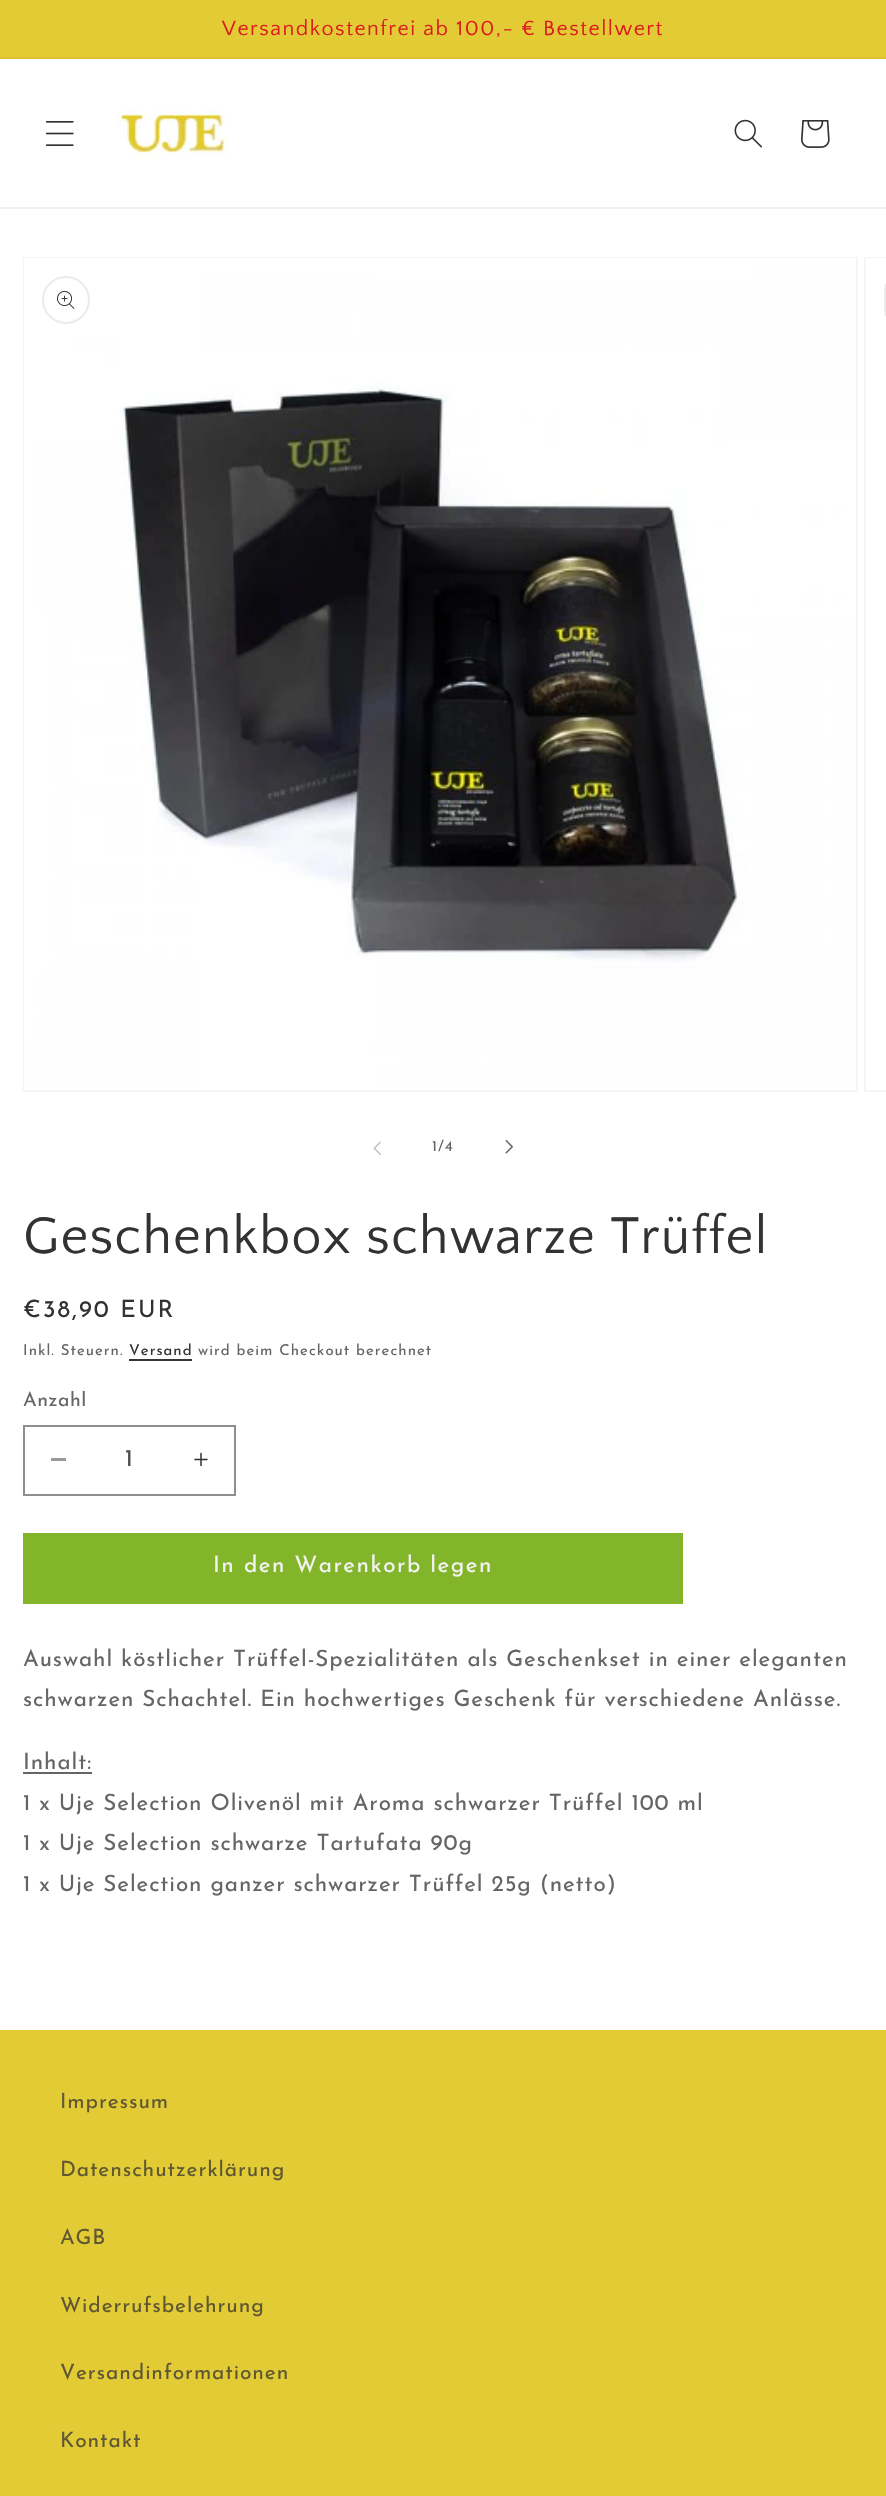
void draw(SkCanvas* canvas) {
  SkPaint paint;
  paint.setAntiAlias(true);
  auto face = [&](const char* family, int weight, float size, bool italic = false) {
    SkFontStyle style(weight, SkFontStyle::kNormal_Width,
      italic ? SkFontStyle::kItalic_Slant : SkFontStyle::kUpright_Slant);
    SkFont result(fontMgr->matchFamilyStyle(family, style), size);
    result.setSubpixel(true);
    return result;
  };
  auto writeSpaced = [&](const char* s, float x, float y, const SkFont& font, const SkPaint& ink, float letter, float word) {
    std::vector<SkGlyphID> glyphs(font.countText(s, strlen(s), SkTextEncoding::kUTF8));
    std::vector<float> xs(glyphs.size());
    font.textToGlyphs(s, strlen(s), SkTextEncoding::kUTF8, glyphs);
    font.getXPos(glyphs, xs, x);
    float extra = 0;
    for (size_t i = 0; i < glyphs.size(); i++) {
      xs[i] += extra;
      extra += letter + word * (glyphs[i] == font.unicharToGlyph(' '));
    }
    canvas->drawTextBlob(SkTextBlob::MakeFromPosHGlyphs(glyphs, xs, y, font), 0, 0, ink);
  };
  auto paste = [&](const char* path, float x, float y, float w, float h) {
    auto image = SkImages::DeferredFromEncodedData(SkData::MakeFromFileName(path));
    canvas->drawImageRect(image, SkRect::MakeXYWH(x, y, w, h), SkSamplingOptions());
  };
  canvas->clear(0xffffffff);
  {
    const struct { float x, y, w, h; SkColor color; } items[] = {
      {0, 0, 886, 57, 0xffe3cb35},
      {0, 57, 886, 2, 0xffe3bd33},
      {0, 207, 886, 2, 0xffefefef},
    };
    for (auto [x, y, w, h, color] : items) {
      paint.setColor(color);
      canvas->drawRect(SkRect::MakeXYWH(x, y, w, h), paint);
    }
  }
  paste("img/1.png", 45, 121, 29, 25);
  paste("img/2.png", 117, 109, 110, 49);
  paste("img/3.png", 734, 119, 28, 29);
  paste("img/4.png", 801, 120, 29, 28);
  paint.setStroke(true);
  paint.setStrokeWidth(2);
  paint.setColor(0xfff5f5f5);
  canvas->drawRect(SkRect::MakeXYWH(24, 258, 833, 833), paint);
  paste("img/5.png", 24, 258, 832, 832);
  paint.setColor(0xffebebeb);
  canvas->drawCircle(66, 300, 23, paint);
  paste("img/6.png", 57, 291, 18, 18);
  paint.setColor(0xfff5f5f5);
  canvas->drawRect(SkRect::MakeXYWH(865, 258, 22, 833), paint);
  paint.setStroke(false);
  paint.setColor(0xffffffff);
  canvas->drawRect(SkRect::MakeXYWH(866, 258, 20, 1), paint);
  paint.setStroke(true);
  paint.setColor(0xffebebeb);
  canvas->drawRoundRect(SkRect::MakeXYWH(885, 277, 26, 46), 23, 23, paint);
  paste("img/7.png", 373, 1141, 8, 14);
  paste("img/8.png", 505, 1140, 8, 14);
  paint.setStroke(false);
  paint.setColor(0xff363636);
  canvas->drawRect(SkRect::MakeXYWH(129, 1359, 63, 2), paint);
  paint.setColor(0xff999999);
  canvas->drawRect(SkRect::MakeXYWH(51, 1458, 15, 3), paint);
  paste("img/9.png", 194, 1452, 14, 15);
  paint.setStroke(true);
  paint.setColor(0xff8f8e8e);
  canvas->drawRect(SkRect::MakeXYWH(24, 1426, 211, 69), paint);
  paint.setStroke(false);
  {
    const struct { float x, y, w, h; SkColor color; } items[] = {
      {23, 1533, 660, 71, 0xff83b52a},
      {23, 1772, 69, 2, 0xff666565},
      {0, 2030, 886, 466, 0xffe3cb35},
    };
    for (auto [x, y, w, h, color] : items) {
      paint.setColor(color);
      canvas->drawRect(SkRect::MakeXYWH(x, y, w, h), paint);
    }
  }
  auto f0 = face("Quattrocento Sans", 400, 21.6f);
  paint.setColor(0xffdd1d1d);
  writeSpaced("Versandkostenfrei ab 100,- € Bestellwert", 222, 35, f0, paint, 1.5f, 0);
  auto f1 = face("Josefin Sans", 400, 15);
  paint.setColor(0xff666565);
  writeSpaced("1/4", 432, 1151, f1, paint, 1.05f, 0);
  auto f2 = face("Quattrocento Sans", 400, 54);
  paint.setColor(0xff333232);
  writeSpaced("Geschenkbox schwarze Trüffel", 23, 1253, f2, paint, 1.1f, 0);
  auto f3 = face("Josefin Sans", 400, 24);
  writeSpaced("€38,90 EUR", 23, 1317, f3, paint, 2, 0);
  paint.setColor(0xff666565);
  writeSpaced("Inkl. Steuern.", 23, 1355, f1, paint, 1.05f, 0);
  paint.setColor(0xff333232);
  writeSpaced("Versand", 129, 1355, f1, paint, 1.05f, 0);
  paint.setColor(0xff666565);
  writeSpaced("wird beim Checkout berechnet", 198, 1355, f1, paint, 1.05f, 0);
  auto f4 = face("Josefin Sans", 400, 19.5f);
  writeSpaced("Anzahl", 23, 1406, f4, paint, 0.5f, 0);
  paint.setColor(0xff525151);
  canvas->drawString("1", 125, 1466, f3, paint);
  auto f5 = face("Josefin Sans", 400, 22.5f);
  paint.setColor(0xfff3f3f3);
  writeSpaced("In den Warenkorb legen", 213, 1572, f5, paint, 1.5f, 0);
  paint.setColor(0xff666565);
  {
    const struct { const char* s; float x, y; } items[] = {
      {"Auswahl köstlicher Trüffel-Spezialitäten als Geschenkset in einer eleganten", 23, 1666},
      {"schwarzen Schachtel. Ein hochwertiges Geschenk für verschiedene Anlässe.", 23, 1706},
      {"Inhalt:", 23, 1769},
      {"1 x Uje Selection Olivenöl mit Aroma schwarzer Trüffel 100 ml", 23, 1810},
      {"1 x Uje Selection schwarze Tartufata 90g", 23, 1850},
      {"1 x Uje Selection ganzer schwarzer Trüffel 25g (netto)", 23, 1891},
    };
    for (auto [s, x, y] : items) {
      writeSpaced(s, x, y, f5, paint, 0.9f, 0);
    }
  }
  auto f6 = face("Josefin Sans", 400, 21);
  paint.setColor(0xff5f5833);
  {
    const struct { const char* s; float x, y; } items[] = {
      {"Impressum", 60, 2108},
      {"Datenschutzerklärung", 60, 2176},
      {"AGB", 60, 2244},
      {"Widerrufsbelehrung", 60, 2312},
      {"Versandinformationen", 60, 2379},
      {"Kontakt", 60, 2447},
    };
    for (auto [s, x, y] : items) {
      writeSpaced(s, x, y, f6, paint, 0.9f, 0);
    }
  }
}
